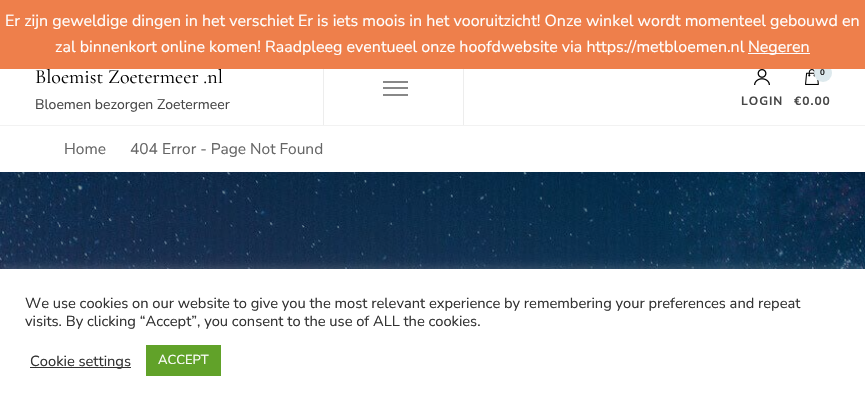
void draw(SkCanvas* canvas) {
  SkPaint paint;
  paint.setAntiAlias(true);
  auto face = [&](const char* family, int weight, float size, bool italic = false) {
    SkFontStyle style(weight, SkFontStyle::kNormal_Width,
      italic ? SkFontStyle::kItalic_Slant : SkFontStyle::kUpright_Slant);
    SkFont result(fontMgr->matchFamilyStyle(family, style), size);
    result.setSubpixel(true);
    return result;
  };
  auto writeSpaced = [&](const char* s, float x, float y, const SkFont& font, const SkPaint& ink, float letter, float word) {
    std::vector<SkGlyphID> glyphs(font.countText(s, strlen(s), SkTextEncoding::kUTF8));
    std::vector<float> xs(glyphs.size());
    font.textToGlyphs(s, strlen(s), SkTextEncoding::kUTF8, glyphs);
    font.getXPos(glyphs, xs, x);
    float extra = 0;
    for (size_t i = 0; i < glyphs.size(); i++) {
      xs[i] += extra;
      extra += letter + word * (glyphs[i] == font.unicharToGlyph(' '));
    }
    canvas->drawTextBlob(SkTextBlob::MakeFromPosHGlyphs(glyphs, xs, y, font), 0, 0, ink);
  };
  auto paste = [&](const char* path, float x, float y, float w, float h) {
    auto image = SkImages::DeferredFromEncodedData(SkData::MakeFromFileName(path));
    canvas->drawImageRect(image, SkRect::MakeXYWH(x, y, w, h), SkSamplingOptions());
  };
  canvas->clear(0xffffffff);
  {
    const struct { float x, y, w, h; SkColor color; } items[] = {
      {0, 125, 865, 1, 0xfff2f2f2},
      {323, 69, 1, 56, 0xffededed},
      {383, 81, 25, 2, 0xff888888},
      {383, 87, 25, 2, 0xff888888},
      {383, 94, 25, 2, 0xff888888},
      {463, 69, 1, 56, 0xffededed},
    };
    for (auto [x, y, w, h, color] : items) {
      paint.setColor(color);
      canvas->drawRect(SkRect::MakeXYWH(x, y, w, h), paint);
    }
  }
  paste("img/1.png", 754, 69, 16, 16);
  paste("img/2.png", 805, 69, 14, 16);
  paint.setColor(0xffdde9ed);
  canvas->drawCircle(823, 73, 9, paint);
  paste("img/3.png", 0, 172, 865, 97);
  paint.setColor(0x4dacabab);
  paint.setMaskFilter(SkMaskFilter::MakeBlur(kNormal_SkBlurStyle, 5));
  canvas->drawRect(SkRect::MakeXYWH(0, 268, 865, 137), paint);
  paint.setMaskFilter(nullptr);
  {
    const struct { float x, y, w, h; SkColor color; } items[] = {
      {0, 269, 865, 137, 0xffffffff},
      {30, 367, 101, 1, 0xff333333},
      {146, 345, 75, 31, 0xff61a229},
    };
    for (auto [x, y, w, h, color] : items) {
      paint.setColor(color);
      canvas->drawRect(SkRect::MakeXYWH(x, y, w, h), paint);
    }
  }
  auto f0 = face("Cormorant", 400, 20);
  paint.setColor(0xff000000);
  canvas->drawString("Bloemist Zoetermeer .nl", 35, 83, f0, paint);
  paint.setColor(0xffee7f4b);
  canvas->drawRect(SkRect::MakeXYWH(0, 0, 865, 69), paint);
  paint.setColor(0xfffcfbfe);
  canvas->drawRect(SkRect::MakeXYWH(748, 53, 62, 1), paint);
  auto f1 = face("Nunito Sans", 400, 16);
  paint.setColor(0xffffffff);
  {
    const struct { const char* s; float x, y; } items[] = {
      {"Negeren", 748, 52},
      {"zal binnenkort online komen! Raadpleeg eventueel onze hoofdwebsite via https://metbloemen.nl", 55, 52},
      {"Er zijn geweldige dingen in het verschiet Er is iets moois in het vooruitzicht! Onze winkel wordt momenteel gebouwd en", 5, 26},
    };
    for (auto [s, x, y] : items) {
      canvas->drawString(s, x, y, f1, paint);
    }
  }
  auto f2 = face("Nunito Sans", 400, 14);
  paint.setColor(0xff474747);
  canvas->drawString("Bloemen bezorgen Zoetermeer", 35, 109, f2, paint);
  auto f3 = face("Nunito Sans", 700, 12);
  writeSpaced("LOGIN", 741, 105, f3, paint, 1, 0);
  auto f4 = face("Nunito Sans", 700, 8);
  paint.setColor(0xff202020);
  writeSpaced("0", 820, 75, f4, paint, 1, 0);
  paint.setColor(0xff474747);
  writeSpaced("€0.00", 794, 105, f3, paint, 1, 0);
  auto f5 = face("Nunito Sans", 400, 15.5f);
  paint.setColor(0xff666666);
  canvas->drawString("Home", 64, 154, f5, paint);
  canvas->drawString("404 Error - Page Not Found", 130, 154, f5, paint);
  auto f6 = face("Nunito Sans", 400, 14.67f);
  paint.setColor(0xff333333);
  {
    const struct { const char* s; float x, y; } items[] = {
      {"We use cookies on our website to give you the most relevant experience by remembering your preferences and repeat", 25, 308},
      {"visits. By clicking “Accept”, you consent to the use of ALL the cookies.", 25, 326},
      {"Cookie settings", 30, 366},
    };
    for (auto [s, x, y] : items) {
      canvas->drawString(s, x, y, f6, paint);
    }
  }
  auto f7 = face("Nunito Sans", 400, 13);
  paint.setColor(0xffffffff);
  canvas->drawString("ACCEPT", 158, 364, f7, paint);
}
